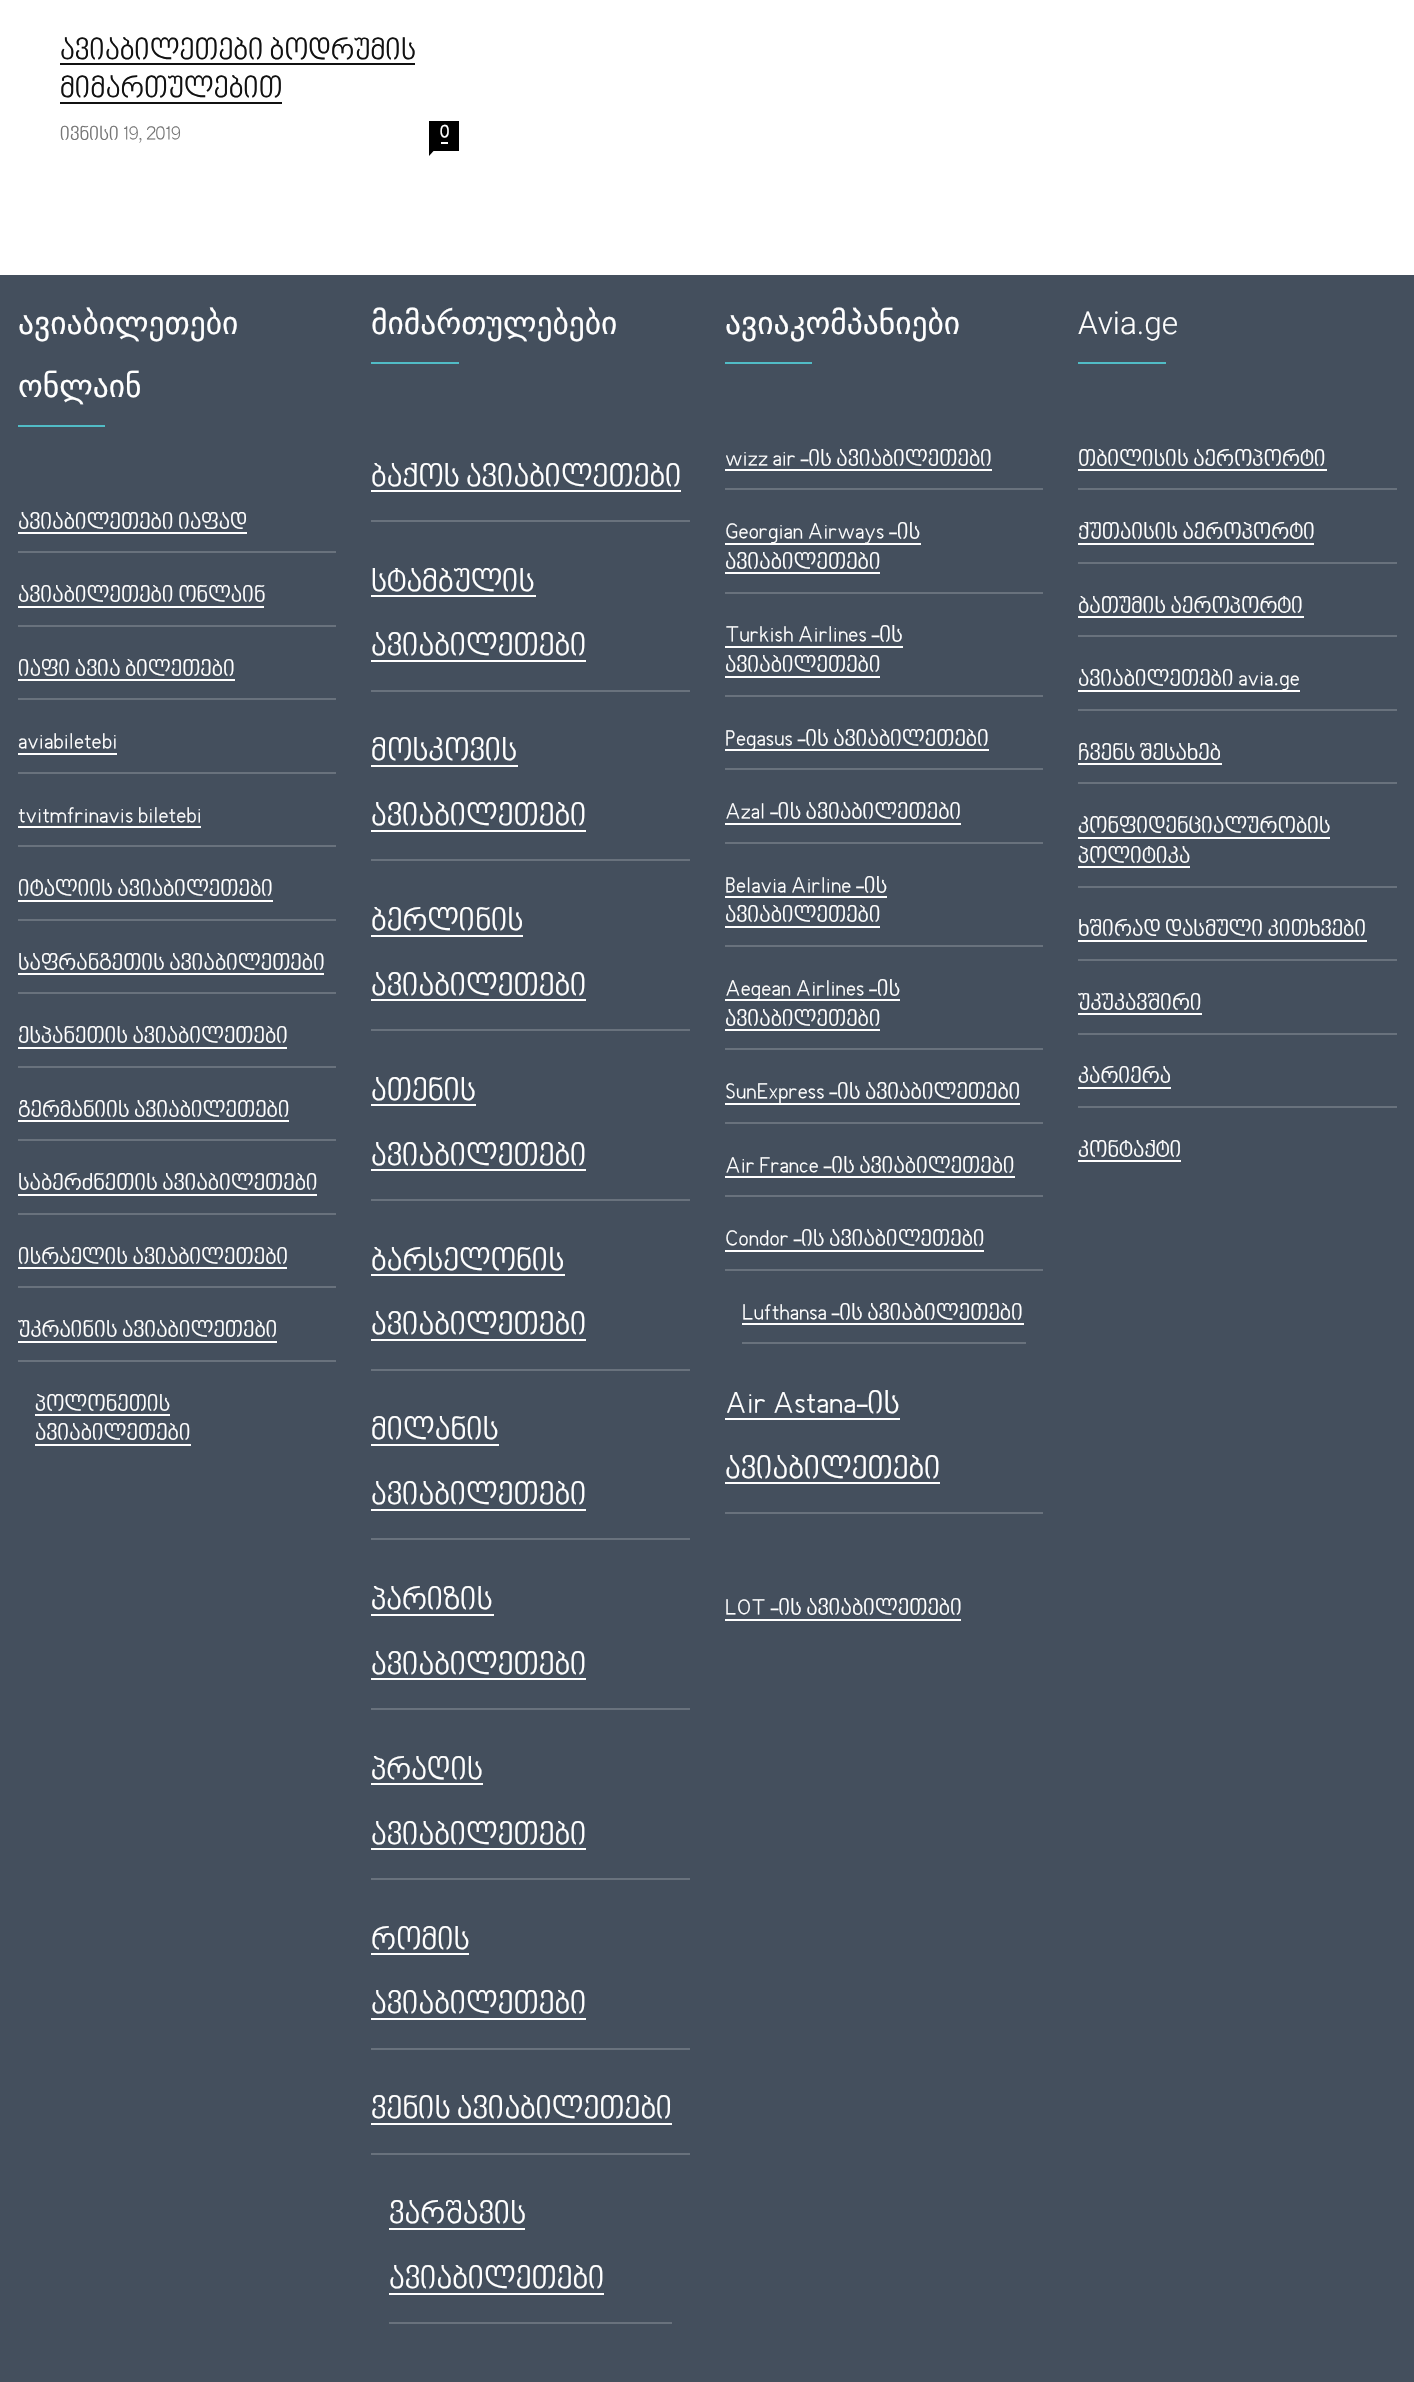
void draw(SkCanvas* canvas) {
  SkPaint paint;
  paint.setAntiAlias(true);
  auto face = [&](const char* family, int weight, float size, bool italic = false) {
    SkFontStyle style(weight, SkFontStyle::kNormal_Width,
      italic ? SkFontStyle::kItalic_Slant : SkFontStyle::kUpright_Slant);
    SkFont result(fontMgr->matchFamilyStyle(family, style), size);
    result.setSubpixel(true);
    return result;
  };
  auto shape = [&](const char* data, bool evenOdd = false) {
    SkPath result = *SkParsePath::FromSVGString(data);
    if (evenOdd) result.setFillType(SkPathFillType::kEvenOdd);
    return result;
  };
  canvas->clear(0xffffffff);
  {
    const struct { float x, y, w, h; SkColor color; } items[] = {
      {60, 63, 355, 2, 0xff111111},
      {60, 102, 222, 2, 0xff111111},
      {429, 121, 30, 30, 0xff000000},
      {441, 142, 7, 2, 0xffffffff},
    };
    for (auto [x, y, w, h, color] : items) {
      paint.setColor(color);
      canvas->drawRect(SkRect::MakeXYWH(x, y, w, h), paint);
    }
  }
  paint.setColor(0xff000000);
  canvas->drawPath(shape("M429 150.5H434L429 156Z"), paint);
  {
    const struct { float x, y, w, h; SkColor color; } items[] = {
      {0, 275, 1414, 2107, 0xff444f5d},
      {18, 425, 87, 2, 0xff51bcc6},
      {18, 532, 229, 2, 0xffffffff},
      {18, 551, 318, 2, 0xff69727d},
      {18, 606, 246, 2, 0xffffffff},
      {18, 625, 318, 2, 0xff69727d},
      {18, 679, 217, 2, 0xffffffff},
      {18, 698, 318, 2, 0xff69727d},
      {18, 753, 99, 2, 0xffffffff},
      {18, 772, 318, 2, 0xff69727d},
      {18, 826, 183, 2, 0xffffffff},
      {18, 845, 318, 2, 0xff69727d},
      {18, 900, 255, 2, 0xffffffff},
      {18, 919, 318, 2, 0xff69727d},
      {18, 973, 306, 2, 0xffffffff},
      {18, 992, 318, 2, 0xff69727d},
      {18, 1047, 269, 2, 0xffffffff},
      {18, 1066, 318, 2, 0xff69727d},
      {18, 1120, 271, 2, 0xffffffff},
      {18, 1139, 318, 2, 0xff69727d},
      {18, 1194, 299, 2, 0xffffffff},
      {18, 1213, 318, 2, 0xff69727d},
      {18, 1267, 269, 2, 0xffffffff},
      {18, 1286, 318, 2, 0xff69727d},
      {18, 1341, 259, 2, 0xffffffff},
      {18, 1360, 318, 2, 0xff69727d},
      {35, 1414, 135, 2, 0xffffffff},
      {35, 1444, 156, 2, 0xffffffff},
      {371, 362, 88, 2, 0xff51bcc6},
      {371, 490, 310, 2, 0xffffffff},
      {371, 520, 319, 2, 0xff69727d},
      {371, 595, 165, 2, 0xffffffff},
      {371, 660, 215, 2, 0xffffffff},
      {371, 690, 319, 2, 0xff69727d},
      {371, 765, 147, 2, 0xffffffff},
      {371, 830, 215, 2, 0xffffffff},
      {371, 859, 319, 2, 0xff69727d},
      {371, 935, 152, 2, 0xffffffff},
      {371, 999, 215, 2, 0xffffffff},
      {371, 1029, 319, 2, 0xff69727d},
      {371, 1104, 105, 2, 0xffffffff},
      {371, 1169, 215, 2, 0xffffffff},
      {371, 1199, 319, 2, 0xff69727d},
      {371, 1274, 194, 2, 0xffffffff},
      {371, 1339, 215, 2, 0xffffffff},
      {371, 1369, 319, 2, 0xff69727d},
      {371, 1444, 128, 2, 0xffffffff},
      {371, 1509, 215, 2, 0xffffffff},
      {371, 1538, 319, 2, 0xff69727d},
      {371, 1614, 123, 2, 0xffffffff},
      {371, 1678, 215, 2, 0xffffffff},
      {371, 1708, 319, 2, 0xff69727d},
      {371, 1783, 112, 2, 0xffffffff},
      {371, 1848, 215, 2, 0xffffffff},
      {371, 1878, 319, 2, 0xff69727d},
      {371, 1953, 98, 2, 0xffffffff},
      {371, 2018, 215, 2, 0xffffffff},
      {371, 2048, 319, 2, 0xff69727d},
      {371, 2123, 301, 2, 0xffffffff},
      {371, 2153, 319, 2, 0xff69727d},
      {389, 2228, 136, 2, 0xffffffff},
      {389, 2293, 215, 2, 0xffffffff},
      {389, 2322, 283, 2, 0xff69727d},
      {725, 362, 87, 2, 0xff51bcc6},
      {725, 469, 267, 2, 0xffffffff},
      {725, 488, 318, 2, 0xff69727d},
      {725, 543, 196, 2, 0xffffffff},
      {725, 572, 155, 2, 0xffffffff},
      {725, 592, 318, 2, 0xff69727d},
      {725, 646, 178, 2, 0xffffffff},
      {725, 676, 155, 2, 0xffffffff},
      {725, 695, 318, 2, 0xff69727d},
      {725, 749, 264, 2, 0xffffffff},
      {725, 768, 318, 2, 0xff69727d},
      {725, 823, 236, 2, 0xffffffff},
      {725, 842, 318, 2, 0xff69727d},
      {725, 896, 162, 2, 0xffffffff},
      {725, 926, 155, 2, 0xffffffff},
      {725, 945, 318, 2, 0xff69727d},
      {725, 999, 175, 2, 0xffffffff},
      {725, 1029, 155, 2, 0xffffffff},
      {725, 1048, 318, 2, 0xff69727d},
      {725, 1103, 295, 2, 0xffffffff},
      {725, 1122, 318, 2, 0xff69727d},
      {725, 1176, 290, 2, 0xffffffff},
      {725, 1195, 318, 2, 0xff69727d},
      {725, 1250, 259, 2, 0xffffffff},
      {725, 1269, 318, 2, 0xff69727d},
      {742, 1323, 282, 2, 0xffffffff},
      {742, 1342, 284, 2, 0xff69727d},
      {725, 1418, 175, 2, 0xffffffff},
      {725, 1482, 215, 2, 0xffffffff},
      {725, 1512, 318, 2, 0xff69727d},
      {725, 1619, 236, 2, 0xffffffff},
      {1078, 362, 88, 2, 0xff51bcc6},
      {1078, 469, 249, 2, 0xffffffff},
      {1078, 488, 319, 2, 0xff69727d},
      {1078, 543, 236, 2, 0xffffffff},
      {1078, 562, 319, 2, 0xff69727d},
      {1078, 616, 226, 2, 0xffffffff},
      {1078, 635, 319, 2, 0xff69727d},
      {1078, 690, 222, 2, 0xffffffff},
      {1078, 709, 319, 2, 0xff69727d},
      {1078, 763, 144, 2, 0xffffffff},
      {1078, 782, 319, 2, 0xff69727d},
      {1078, 837, 252, 2, 0xffffffff},
      {1078, 866, 112, 2, 0xffffffff},
      {1078, 886, 319, 2, 0xff69727d},
      {1078, 940, 289, 2, 0xffffffff},
      {1078, 959, 319, 2, 0xff69727d},
      {1078, 1013, 124, 2, 0xffffffff},
      {1078, 1033, 319, 2, 0xff69727d},
      {1078, 1087, 93, 2, 0xffffffff},
      {1078, 1106, 319, 2, 0xff69727d},
      {1078, 1160, 103, 2, 0xffffffff},
    };
    for (auto [x, y, w, h, color] : items) {
      paint.setColor(color);
      canvas->drawRect(SkRect::MakeXYWH(x, y, w, h), paint);
    }
  }
  auto f0 = face("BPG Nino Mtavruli", 400, 29.75f);
  paint.setColor(0xff111111);
  canvas->drawString("ავიაბილეთები ბოდრუმის", 60, 61, f0, paint);
  canvas->drawString("მიმართულებით", 60, 99, f0, paint);
  auto f1 = face("BPG Nino Mtavruli", 400, 19.25f);
  paint.setColor(0xff767676);
  canvas->drawString("ივნისი 19, 2019", 60, 141, f1, paint);
  auto f2 = face("BPG Nino Mtavruli", 700, 18);
  paint.setColor(0xffffffff);
  canvas->drawString("0", 440, 139, f2, paint);
  auto f3 = face("DejaVu Sans", 400, 31.5f);
  canvas->drawString("ავიაბილეთები", 18, 334, f3, paint);
  canvas->drawString("ონლაინ", 18, 397, f3, paint);
  auto f4 = face("BPG Nino Mtavruli", 400, 22.75f);
  {
    const struct { const char* s; float x, y; } items[] = {
      {"ავიაბილეთები იაფად", 18, 530},
      {"ავიაბილეთები ონლაინ", 18, 603},
      {"იაფი ავია ბილეთები", 18, 677},
      {"aviabiletebi", 18, 750},
      {"tvitmfrinavis biletebi", 18, 824},
      {"იტალიის ავიაბილეთები", 18, 897},
      {"საფრანგეთის ავიაბილეთები", 18, 971},
      {"ესპანეთის ავიაბილეთები", 18, 1044},
      {"გერმანიის ავიაბილეთები", 18, 1118},
      {"საბერძნეთის ავიაბილეთები", 18, 1191},
      {"ისრაელის ავიაბილეთები", 18, 1265},
      {"უკრაინის ავიაბილეთები", 18, 1338},
      {"პოლონეთის", 35, 1412},
      {"ავიაბილეთები", 35, 1441},
    };
    for (auto [s, x, y] : items) {
      canvas->drawString(s, x, y, f4, paint);
    }
  }
  canvas->drawString("მიმართულებები", 371, 334, f3, paint);
  auto f5 = face("BPG Nino Mtavruli", 400, 31.5f);
  {
    const struct { const char* s; float x, y; } items[] = {
      {"ბაქოს ავიაბილეთები", 371, 488},
      {"სტამბულის", 371, 593},
      {"ავიაბილეთები", 371, 657},
      {"მოსკოვის", 371, 762},
      {"ავიაბილეთები", 371, 827},
      {"ბერლინის", 371, 932},
      {"ავიაბილეთები", 371, 997},
      {"ათენის", 371, 1102},
      {"ავიაბილეთები", 371, 1167},
      {"ბარსელონის", 371, 1272},
      {"ავიაბილეთები", 371, 1336},
      {"მილანის", 371, 1441},
      {"ავიაბილეთები", 371, 1506},
      {"პარიზის", 371, 1611},
      {"ავიაბილეთები", 371, 1676},
      {"პრაღის", 371, 1781},
      {"ავიაბილეთები", 371, 1846},
      {"რომის", 371, 1951},
      {"ავიაბილეთები", 371, 2015},
      {"ვენის ავიაბილეთები", 371, 2120},
      {"ვარშავის", 389, 2225},
      {"ავიაბილეთები", 389, 2290},
    };
    for (auto [s, x, y] : items) {
      canvas->drawString(s, x, y, f5, paint);
    }
  }
  canvas->drawString("ავიაკომპანიები", 725, 334, f3, paint);
  {
    const struct { const char* s; float x, y; } items[] = {
      {"wizz air -ის ავიაბილეთები", 725, 467},
      {"Georgian Airways -ის", 725, 540},
      {"ავიაბილეთები", 725, 570},
      {"Turkish Airlines -ის", 725, 643},
      {"ავიაბილეთები", 725, 673},
      {"Pegasus -ის ავიაბილეთები", 725, 747},
      {"Azal -ის ავიაბილეთები", 725, 820},
      {"Belavia Airline -ის", 725, 894},
      {"ავიაბილეთები", 725, 923},
      {"Aegean Airlines -ის", 725, 997},
      {"ავიაბილეთები", 725, 1027},
      {"SunExpress -ის ავიაბილეთები", 725, 1100},
      {"Air France -ის ავიაბილეთები", 725, 1174},
      {"Condor -ის ავიაბილეთები", 725, 1247},
      {"Lufthansa -ის ავიაბილეთები", 742, 1321},
    };
    for (auto [s, x, y] : items) {
      canvas->drawString(s, x, y, f4, paint);
    }
  }
  canvas->drawString("Air Astana-ის", 725, 1415, f5, paint);
  canvas->drawString("ავიაბილეთები", 725, 1480, f5, paint);
  canvas->drawString("LOT -ის ავიაბილეთები", 725, 1616, f4, paint);
  auto f6 = face("Roboto", 300, 31.5f);
  canvas->drawString("Avia.ge", 1078, 334, f6, paint);
  {
    const struct { const char* s; float x, y; } items[] = {
      {"თბილისის აეროპორტი", 1078, 467},
      {"ქუთაისის აეროპორტი", 1078, 540},
      {"ბათუმის აეროპორტი", 1078, 614},
      {"ავიაბილეთები avia.ge", 1078, 687},
      {"ჩვენს შესახებ", 1078, 761},
      {"კონფიდენციალურობის", 1078, 834},
      {"პოლიტიკა", 1078, 864},
      {"ხშირად დასმული კითხვები", 1078, 937},
      {"უკუკავშირი", 1078, 1011},
      {"კარიერა", 1078, 1084},
      {"კონტაქტი", 1078, 1158},
    };
    for (auto [s, x, y] : items) {
      canvas->drawString(s, x, y, f4, paint);
    }
  }
}
